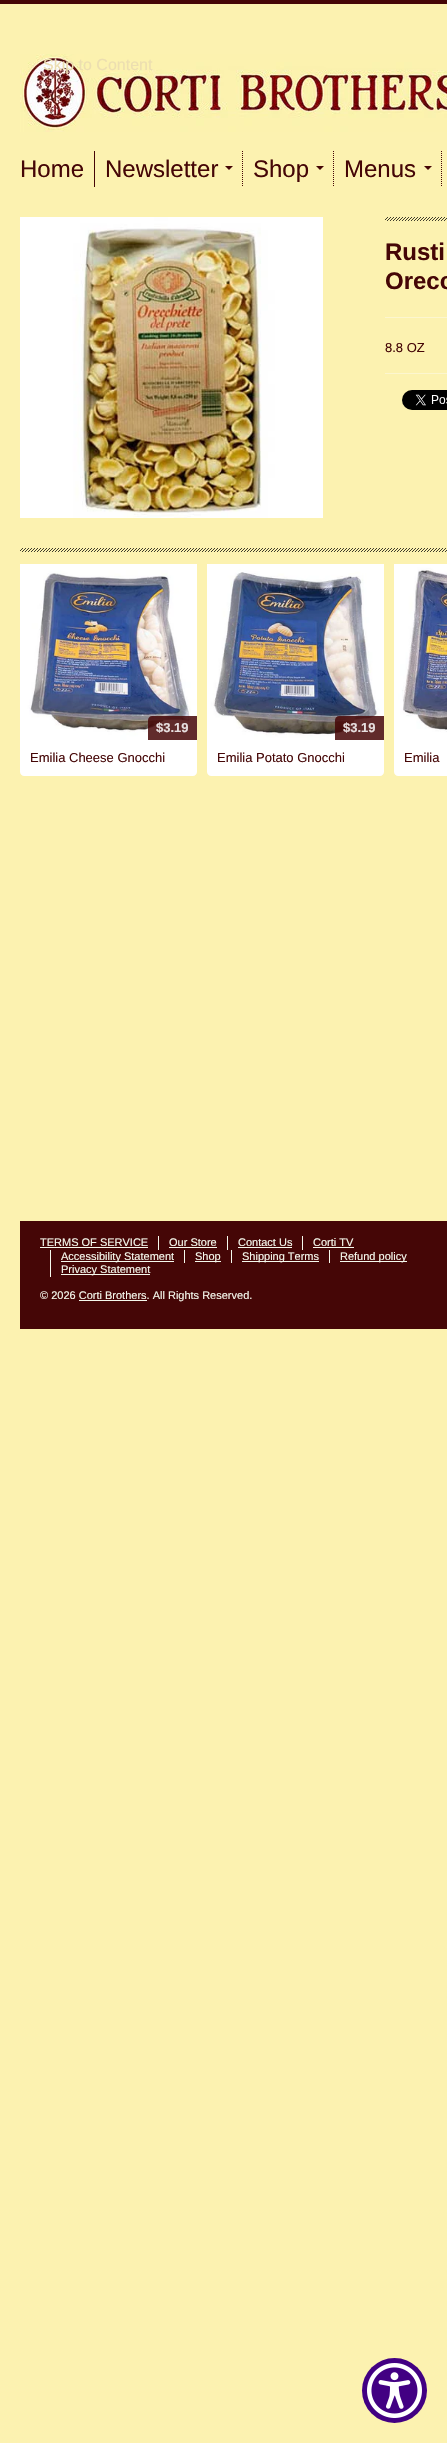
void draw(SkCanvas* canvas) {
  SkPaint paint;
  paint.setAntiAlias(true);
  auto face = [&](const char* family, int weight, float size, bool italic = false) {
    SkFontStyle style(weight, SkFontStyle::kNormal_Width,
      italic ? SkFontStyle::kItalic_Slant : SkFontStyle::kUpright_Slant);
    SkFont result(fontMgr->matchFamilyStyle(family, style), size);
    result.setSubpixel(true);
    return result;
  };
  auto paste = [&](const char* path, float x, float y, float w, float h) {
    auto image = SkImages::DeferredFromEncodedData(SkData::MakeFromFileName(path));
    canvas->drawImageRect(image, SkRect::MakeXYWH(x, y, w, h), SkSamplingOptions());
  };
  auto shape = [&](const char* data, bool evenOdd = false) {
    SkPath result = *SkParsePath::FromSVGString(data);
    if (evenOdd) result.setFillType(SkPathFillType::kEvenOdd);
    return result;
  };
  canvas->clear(0xfffcf2b0);
  paint.setColor(0xff450606);
  canvas->drawRect(SkRect::MakeXYWH(0, 0, 447, 4), paint);
  paint.setColor(0xff420083);
  canvas->drawCircle(394.5f, 2390.5f, 32.5f, paint);
  paste("img/1.png", 367, 2363, 55, 55);
  paste("img/2.png", 20, 54, 427, 78);
  paint.setColor(0xff450606);
  canvas->drawRect(SkRect::MakeXYWH(94, 151, 1, 36), paint);
  paint.setStroke(true);
  paint.setStrokeWidth(1);
  paint.setPathEffect(SkDashPathEffect::Make({{1, 1}}, 0));
  canvas->drawPath(shape("M242.5 151V187"), paint);
  paint.setPathEffect(nullptr);
  paint.setStroke(false);
  canvas->drawPath(shape("M225 166H233L229 170Z"), paint);
  paint.setStroke(true);
  paint.setPathEffect(SkDashPathEffect::Make({{1, 1}}, 0));
  canvas->drawPath(shape("M333.5 151V187"), paint);
  paint.setPathEffect(nullptr);
  paint.setStroke(false);
  canvas->drawPath(shape("M316 166H324L320 170Z"), paint);
  paint.setStroke(true);
  paint.setPathEffect(SkDashPathEffect::Make({{1, 1}}, 0));
  canvas->drawPath(shape("M441.5 151V187"), paint);
  paint.setPathEffect(nullptr);
  paint.setStroke(false);
  canvas->drawPath(shape("M424 166H432L428 170Z"), paint);
  paste("img/3.png", 20, 217, 303, 301);
  paste("img/4.png", 385, 217, 62, 4);
  paint.setColor(0xfffcf6cf);
  canvas->drawRect(SkRect::MakeXYWH(385, 317, 62, 1), paint);
  canvas->drawRect(SkRect::MakeXYWH(385, 373, 62, 1), paint);
  paste("img/5.png", 402, 390, 45, 20);
  paste("img/6.png", 20, 548, 427, 4);
  paste("img/7.png", 20, 564, 177, 176);
  paint.setColor(0xd9450606);
  canvas->drawPath(shape("M152 716H197V740H148V720C148 718 150 716 152 716Z"), paint);
  paint.setColor(0xffffffff);
  canvas->drawPath(shape("M20 740H197V772C197 774 195 776 193 776H24C22 776 20 774 20 772Z"), paint);
  paste("img/8.png", 207, 564, 177, 176);
  paint.setColor(0xd9450606);
  canvas->drawPath(shape("M339 716H384V740H335V720C335 718 337 716 339 716Z"), paint);
  paint.setColor(0xffffffff);
  canvas->drawPath(shape("M207 740H384V772C384 774 382 776 380 776H211C209 776 207 774 207 772Z"), paint);
  paste("img/9.png", 394, 564, 53, 176);
  canvas->drawPath(shape("M394 740H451V772C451 774 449 776 447 776H398C396 776 394 774 394 772Z"), paint);
  {
    const struct { float x, y, w, h; SkColor color; } items[] = {
      {20, 1221, 427, 108, 0xff450606},
      {40, 1247, 108, 1, 0xfff6f9ed},
      {158, 1236, 1, 14, 0xfff6f9ed},
      {169, 1247, 48, 1, 0xfff6f9ed},
      {227, 1236, 1, 14, 0xfff6f9ed},
      {238, 1247, 54, 1, 0xfff6f9ed},
      {302, 1236, 1, 14, 0xfff6f9ed},
      {313, 1247, 41, 1, 0xfff6f9ed},
      {50, 1250, 1, 27, 0xfff6f9ed},
      {61, 1261, 113, 1, 0xfff6f9ed},
      {184, 1250, 1, 13, 0xfff6f9ed},
      {195, 1261, 26, 1, 0xfff6f9ed},
      {231, 1250, 1, 13, 0xfff6f9ed},
      {242, 1261, 77, 1, 0xfff6f9ed},
      {329, 1250, 1, 13, 0xfff6f9ed},
      {340, 1261, 67, 1, 0xfff6f9ed},
      {61, 1274, 89, 1, 0xfff6f9ed},
      {79, 1300, 68, 1, 0xfff6f9ed},
    };
    for (auto [x, y, w, h, color] : items) {
      paint.setColor(color);
      canvas->drawRect(SkRect::MakeXYWH(x, y, w, h), paint);
    }
  }
  auto f0 = face("Liberation Sans", 400, 16);
  paint.setColor(0xffecdeb0);
  canvas->drawString("Skip to Content", 43, 70, f0, paint);
  auto f1 = face("Liberation Sans", 400, 24);
  paint.setColor(0xff450606);
  {
    const struct { const char* s; float x, y; } items[] = {
      {"Home", 20, 177},
      {"Newsletter", 105, 177},
      {"Shop", 253, 177},
      {"Menus", 344, 177},
    };
    for (auto [s, x, y] : items) {
      canvas->drawString(s, x, y, f1, paint);
    }
  }
  auto f2 = face("Liberation Sans", 700, 24);
  canvas->drawString("Rusti", 385, 260, f2, paint);
  canvas->drawString("Orecc", 385, 289, f2, paint);
  auto f3 = face("Liberation Sans", 400, 13);
  canvas->drawString("8.8 OZ", 385, 352, f3, paint);
  auto f4 = face("Liberation Sans", 700, 13);
  paint.setColor(0xffe7dfdf);
  canvas->drawString("$3.19", 156, 732, f4, paint);
  paint.setColor(0xff450606);
  canvas->drawString("Emilia Cheese Gnocchi", 30, 762, f3, paint);
  paint.setColor(0xffe7dfdf);
  canvas->drawString("$3.19", 343, 732, f4, paint);
  paint.setColor(0xff450606);
  canvas->drawString("Emilia Potato Gnocchi", 217, 762, f3, paint);
  canvas->drawString("Emilia", 404, 762, f3, paint);
  auto f5 = face("Liberation Sans", 400, 11);
  paint.setColor(0xfff6f9ed);
  {
    const struct { const char* s; float x, y; } items[] = {
      {"TERMS OF SERVICE", 40, 1246},
      {"Our Store", 169, 1246},
      {"Contact Us", 238, 1246},
      {"Corti TV", 313, 1246},
      {"Accessibility Statement", 61, 1260},
      {"Shop", 195, 1260},
      {"Shipping Terms", 242, 1260},
      {"Refund policy", 340, 1260},
      {"Privacy Statement", 61, 1273},
      {"© 2026 Corti Brothers. All Rights Reserved.", 40, 1299},
    };
    for (auto [s, x, y] : items) {
      canvas->drawString(s, x, y, f5, paint);
    }
  }
}
